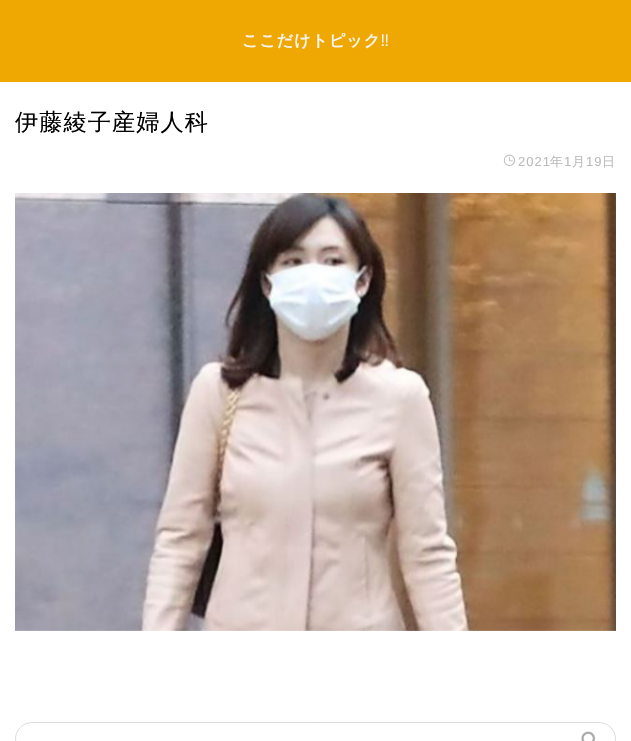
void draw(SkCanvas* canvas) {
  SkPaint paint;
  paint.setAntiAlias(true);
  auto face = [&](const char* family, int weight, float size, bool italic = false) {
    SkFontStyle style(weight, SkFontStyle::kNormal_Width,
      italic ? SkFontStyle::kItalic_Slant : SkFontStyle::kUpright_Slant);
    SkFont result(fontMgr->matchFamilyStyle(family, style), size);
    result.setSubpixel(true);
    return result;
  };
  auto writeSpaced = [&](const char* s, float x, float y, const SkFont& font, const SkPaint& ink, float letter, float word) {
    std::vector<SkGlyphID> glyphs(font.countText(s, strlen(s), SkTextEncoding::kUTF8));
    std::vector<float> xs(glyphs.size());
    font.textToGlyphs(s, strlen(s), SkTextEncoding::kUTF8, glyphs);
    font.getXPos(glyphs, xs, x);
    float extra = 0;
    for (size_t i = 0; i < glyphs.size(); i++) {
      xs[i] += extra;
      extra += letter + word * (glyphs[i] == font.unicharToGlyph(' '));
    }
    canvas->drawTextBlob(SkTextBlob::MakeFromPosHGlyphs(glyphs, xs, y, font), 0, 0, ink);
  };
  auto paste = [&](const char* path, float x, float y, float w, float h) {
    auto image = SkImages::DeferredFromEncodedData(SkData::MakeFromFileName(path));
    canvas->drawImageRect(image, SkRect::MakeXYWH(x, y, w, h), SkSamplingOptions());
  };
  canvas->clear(0xffffffff);
  paint.setColor(0xffefa802);
  canvas->drawRect(SkRect::MakeXYWH(0, 0, 631, 82), paint);
  paste("img/1.png", 503, 154, 13, 12);
  paste("img/2.png", 15, 193, 601, 438);
  paint.setStroke(true);
  paint.setStrokeWidth(1);
  paint.setColor(0xffdddddd);
  canvas->drawRoundRect(SkRect::MakeXYWH(15.5f, 722.5f, 600, 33), 16.5f, 16.5f, paint);
  paste("img/3.png", 581, 731, 14, 10);
  auto f0 = face("WenQuanYi Zen Hei", 700, 16);
  paint.setStroke(false);
  paint.setColor(0xfff4f4f4);
  writeSpaced("ここだけトピック", 242, 46, f0, paint, 1, 0);
  auto f1 = face("Quicksand", 700, 16);
  writeSpaced("!!", 381, 46, f1, paint, 1, 0);
  auto f2 = face("WenQuanYi Zen Hei", 500, 23.25f);
  paint.setColor(0xff000000);
  writeSpaced("伊藤綾子産婦人科", 15, 130, f2, paint, 1, 0);
  auto f3 = face("Liberation Sans", 400, 13);
  paint.setColor(0xffbbbbbb);
  writeSpaced("2021", 518, 166, f3, paint, 1, 0);
  auto f4 = face("WenQuanYi Zen Hei", 500, 13);
  writeSpaced("年", 550, 166, f4, paint, 1, 0);
  writeSpaced("1", 564, 166, f3, paint, 1, 0);
  writeSpaced("月", 572, 166, f4, paint, 1, 0);
  writeSpaced("19", 586, 166, f3, paint, 1, 0);
  writeSpaced("日", 602, 166, f4, paint, 1, 0);
}
